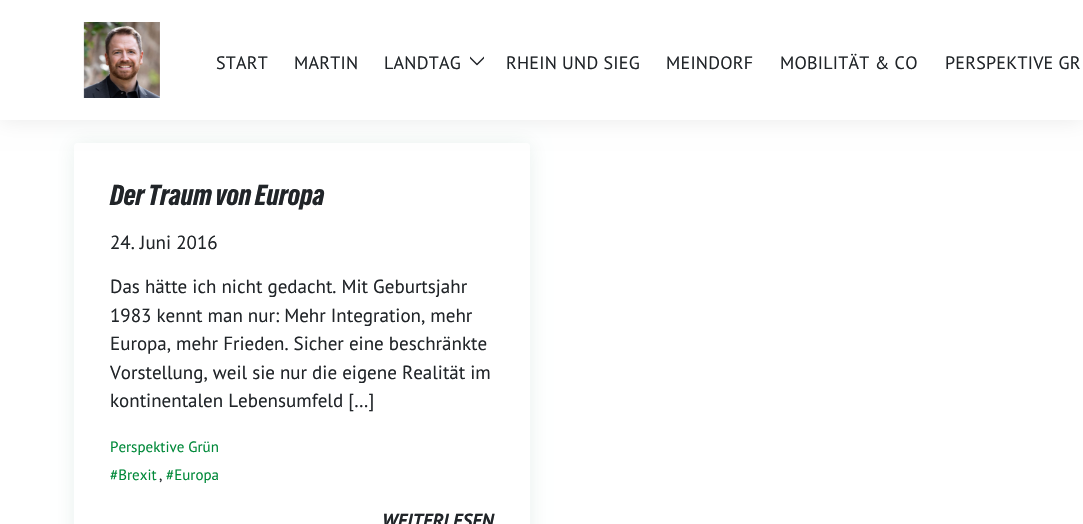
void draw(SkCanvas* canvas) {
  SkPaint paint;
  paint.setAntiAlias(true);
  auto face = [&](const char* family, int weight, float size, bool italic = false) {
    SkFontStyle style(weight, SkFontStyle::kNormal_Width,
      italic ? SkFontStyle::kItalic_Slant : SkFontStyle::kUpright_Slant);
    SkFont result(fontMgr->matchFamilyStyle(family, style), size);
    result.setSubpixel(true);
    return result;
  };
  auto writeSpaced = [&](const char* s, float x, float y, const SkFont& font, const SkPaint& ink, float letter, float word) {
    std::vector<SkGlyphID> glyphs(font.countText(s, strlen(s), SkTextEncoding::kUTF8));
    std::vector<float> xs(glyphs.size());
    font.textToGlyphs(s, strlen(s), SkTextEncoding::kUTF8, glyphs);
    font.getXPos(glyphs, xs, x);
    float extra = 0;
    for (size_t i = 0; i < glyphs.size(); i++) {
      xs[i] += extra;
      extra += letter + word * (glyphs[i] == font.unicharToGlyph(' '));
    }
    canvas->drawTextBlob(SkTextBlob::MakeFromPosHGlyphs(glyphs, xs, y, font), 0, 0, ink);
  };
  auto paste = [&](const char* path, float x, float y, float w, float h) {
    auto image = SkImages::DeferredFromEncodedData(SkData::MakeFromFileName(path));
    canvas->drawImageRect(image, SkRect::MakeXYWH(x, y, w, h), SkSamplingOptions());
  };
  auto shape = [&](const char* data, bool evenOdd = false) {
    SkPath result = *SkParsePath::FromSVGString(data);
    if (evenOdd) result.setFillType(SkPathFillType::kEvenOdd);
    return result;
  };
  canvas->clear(0xffffffff);
  paint.setColor(0x14000000);
  paint.setMaskFilter(SkMaskFilter::MakeBlur(kNormal_SkBlurStyle, 10));
  canvas->drawRect(SkRect::MakeXYWH(0, 1, 1083, 120), paint);
  paint.setMaskFilter(nullptr);
  canvas->save();
  canvas->clipPath(shape("M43 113H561V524H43ZM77 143H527C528.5 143 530 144.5 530 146V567C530 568.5 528.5 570 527 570H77C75.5 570 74 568.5 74 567V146C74 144.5 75.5 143 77 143Z", true), true);
  paint.setColor(0x17005437);
  paint.setMaskFilter(SkMaskFilter::MakeBlur(kNormal_SkBlurStyle, 10));
  canvas->drawRoundRect(SkRect::MakeXYWH(74, 144, 456, 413), 3, 3, paint);
  paint.setMaskFilter(nullptr);
  canvas->restore();
  paint.setColor(0xffffffff);
  canvas->drawRect(SkRect::MakeXYWH(0, 0, 1083, 120), paint);
  paste("img/1.png", 83, 22, 77, 76);
  canvas->save();
  canvas->clipRect(SkRect::MakeXYWH(470, 48, 14, 24));
  paint.setStroke(true);
  paint.setStrokeWidth(1.5f);
  paint.setStrokeCap(SkPaint::kRound_Cap);
  paint.setStrokeJoin(SkPaint::kRound_Join);
  paint.setColor(0xff212529);
  canvas->drawPath(shape("M468 55.5L477 64.5L486 55.5"), paint);
  canvas->restore();
  auto f0 = face("PT Sans", 400, 18);
  paint.setStroke(false);
  {
    const struct { const char* s; float x, y; } items[] = {
      {"START", 216, 69},
      {"MARTIN", 294, 69},
      {"LANDTAG", 384, 69},
      {"RHEIN UND SIEG", 506, 69},
      {"MEINDORF", 666, 69},
      {"MOBILITÄT & CO", 780, 69},
      {"PERSPEKTIVE GR", 945, 69},
    };
    for (auto [s, x, y] : items) {
      writeSpaced(s, x, y, f0, paint, 0.25f, 0);
    }
  }
  auto f1 = face("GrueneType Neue", 400, 27);
  canvas->drawString("Der Traum von Europa", 110, 205, f1, paint);
  auto f2 = face("PT Sans", 400, 19);
  {
    const struct { const char* s; float x, y; } items[] = {
      {"24. Juni 2016", 110, 249},
      {"Das hätte ich nicht gedacht. Mit Geburtsjahr", 110, 293},
      {"1983 kennt man nur: Mehr Integration, mehr", 110, 322},
      {"Europa, mehr Frieden. Sicher eine beschränkte", 110, 350},
      {"Vorstellung, weil sie nur die eigene Realität im", 110, 379},
      {"kontinentalen Lebensumfeld […]", 110, 407},
    };
    for (auto [s, x, y] : items) {
      canvas->drawString(s, x, y, f2, paint);
    }
  }
  auto f3 = face("PT Sans", 400, 15);
  paint.setColor(0xff008939);
  canvas->drawString("Perspektive Grün", 110, 452, f3, paint);
  canvas->drawString("#Brexit", 110, 480, f3, paint);
  paint.setColor(0xff212529);
  canvas->drawString(",", 159, 480, f3, paint);
  paint.setColor(0xff008939);
  canvas->drawString("#Europa", 166, 480, f3, paint);
  auto f4 = face("PT Sans", 700, 19, true);
  paint.setColor(0xff212529);
  canvas->drawString("WEITERLESEN", 382, 527, f4, paint);
}
